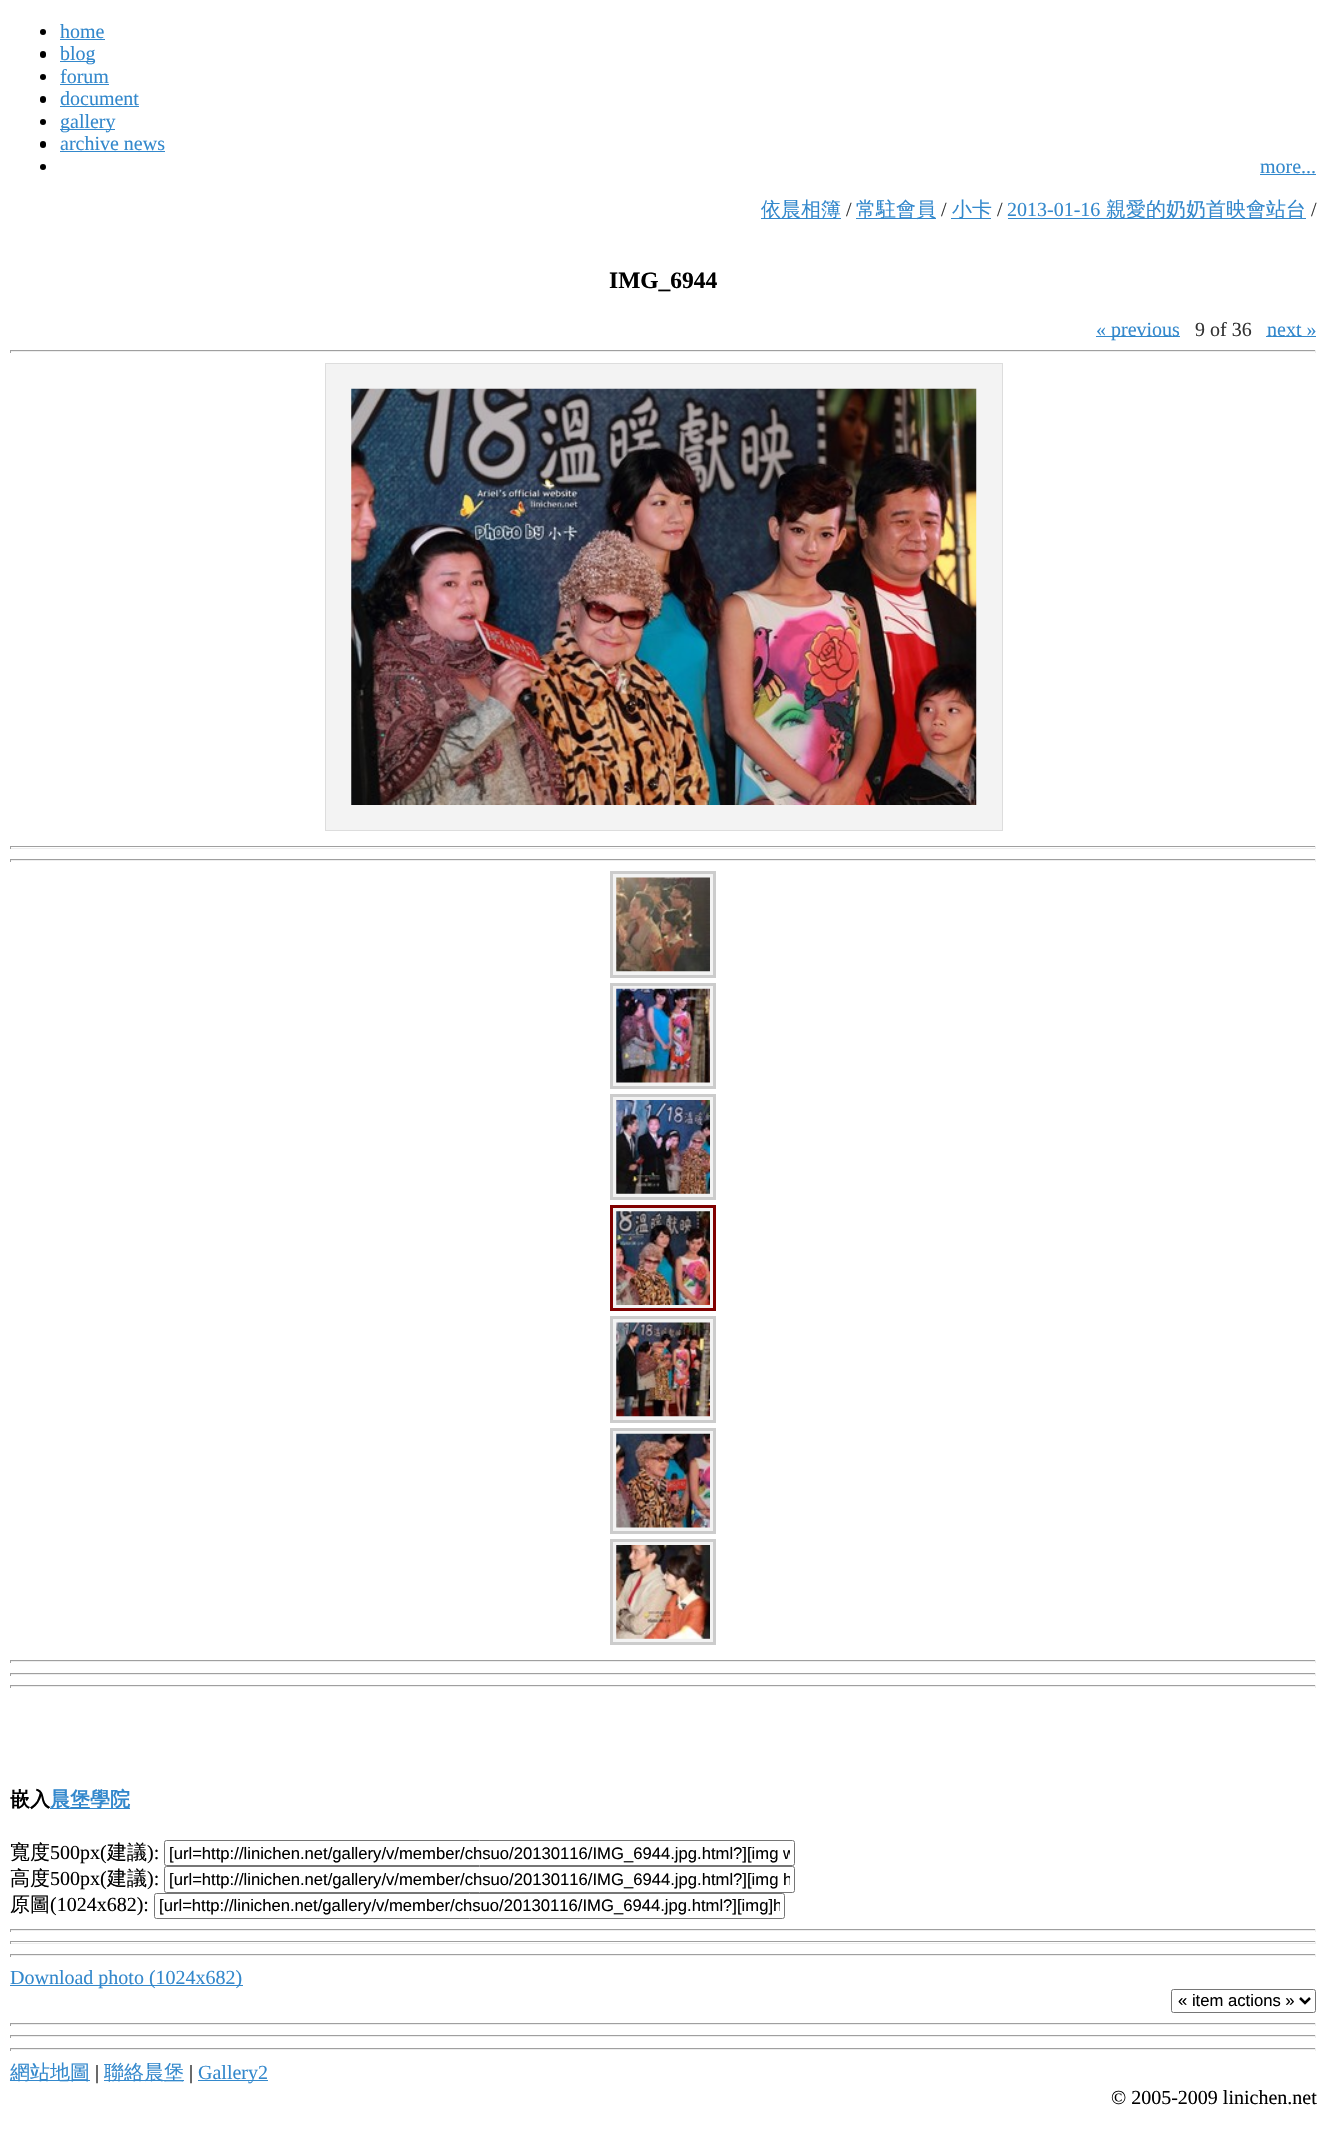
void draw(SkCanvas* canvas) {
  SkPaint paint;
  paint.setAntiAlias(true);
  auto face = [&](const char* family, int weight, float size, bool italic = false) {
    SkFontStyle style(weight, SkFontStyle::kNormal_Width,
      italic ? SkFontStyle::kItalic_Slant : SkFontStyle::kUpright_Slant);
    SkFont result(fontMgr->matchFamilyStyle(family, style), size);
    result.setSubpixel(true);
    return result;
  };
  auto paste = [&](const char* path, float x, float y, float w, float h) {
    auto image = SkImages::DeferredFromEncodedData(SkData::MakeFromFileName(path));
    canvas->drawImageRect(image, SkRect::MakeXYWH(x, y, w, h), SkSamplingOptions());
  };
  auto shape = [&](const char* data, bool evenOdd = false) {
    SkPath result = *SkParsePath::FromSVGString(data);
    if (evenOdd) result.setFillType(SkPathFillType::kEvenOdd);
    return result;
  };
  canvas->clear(0xffffffff);
  paint.setColor(0xff000000);
  canvas->drawCircle(43, 32, 3, paint);
  paint.setColor(0xff3388cc);
  canvas->drawRect(SkRect::MakeXYWH(60, 39, 45, 1), paint);
  paint.setColor(0xff000000);
  canvas->drawRoundRect(SkRect::MakeXYWH(40, 51, 6, 7), 3, 3, paint);
  paint.setColor(0xff3388cc);
  canvas->drawRect(SkRect::MakeXYWH(60, 61, 35, 1), paint);
  paint.setColor(0xff000000);
  canvas->drawCircle(43, 77, 3, paint);
  paint.setColor(0xff3388cc);
  canvas->drawRect(SkRect::MakeXYWH(60, 84, 49, 1), paint);
  paint.setColor(0xff000000);
  canvas->drawRoundRect(SkRect::MakeXYWH(40, 96, 6, 7), 3, 3, paint);
  paint.setColor(0xff3388cc);
  canvas->drawRect(SkRect::MakeXYWH(60, 106, 79, 1), paint);
  paint.setColor(0xff000000);
  canvas->drawCircle(43, 122, 3, paint);
  paint.setColor(0xff3388cc);
  canvas->drawRect(SkRect::MakeXYWH(60, 129, 55, 1), paint);
  paint.setColor(0xff000000);
  canvas->drawRoundRect(SkRect::MakeXYWH(40, 141, 6, 7), 3, 3, paint);
  paint.setColor(0xff3388cc);
  canvas->drawRect(SkRect::MakeXYWH(60, 151, 105, 1), paint);
  paint.setColor(0xff000000);
  canvas->drawCircle(43, 167, 3, paint);
  {
    const struct { float x, y, w, h; SkColor color; } items[] = {
      {1260, 174, 56, 1, 0xff3388cc},
      {761, 218, 80, 1, 0xff3388cc},
      {856, 218, 80, 1, 0xff3388cc},
      {951, 218, 40, 1, 0xff3388cc},
      {1008, 218, 298, 1, 0xff3388cc},
      {1096, 336, 84, 1, 0xff3388cc},
      {1266, 336, 50, 1, 0xff3388cc},
      {10, 350, 1306, 1, 0xff9f9f9f},
      {1315, 350, 1, 3, 0xffeeeeee},
      {10, 351, 1306, 1, 0xffeeeeee},
      {10, 350, 1, 3, 0xff9f9f9f},
    };
    for (auto [x, y, w, h, color] : items) {
      paint.setColor(color);
      canvas->drawRect(SkRect::MakeXYWH(x, y, w, h), paint);
    }
  }
  paint.setColor(0xfff3f3f3);
  canvas->drawRect(SkRect::MakeXYWH(325.5f, 363.5f, 677, 467), paint);
  paint.setStroke(true);
  paint.setStrokeWidth(1);
  paint.setColor(0xffdddddd);
  canvas->drawRect(SkRect::MakeXYWH(325.5f, 363.5f, 677, 467), paint);
  paste("img/1.png", 351, 388, 626, 417);
  paint.setStroke(false);
  {
    const struct { float x, y, w, h; SkColor color; } items[] = {
      {10, 846, 1306, 1, 0xff9f9f9f},
      {1315, 846, 1, 3, 0xffeeeeee},
      {10, 848, 1306, 1, 0xffeeeeee},
      {10, 846, 1, 3, 0xff9f9f9f},
      {10, 859, 1306, 1, 0xff9f9f9f},
      {1315, 859, 1, 3, 0xffeeeeee},
      {10, 860, 1306, 1, 0xffeeeeee},
      {10, 859, 1, 3, 0xff9f9f9f},
    };
    for (auto [x, y, w, h, color] : items) {
      paint.setColor(color);
      canvas->drawRect(SkRect::MakeXYWH(x, y, w, h), paint);
    }
  }
  paint.setColor(0xfff3f3f3);
  canvas->drawRect(SkRect::MakeXYWH(611.5f, 872.5f, 103, 104), paint);
  paint.setStroke(true);
  paint.setStrokeWidth(3);
  paint.setColor(0xffcccccc);
  canvas->drawRect(SkRect::MakeXYWH(611.5f, 872.5f, 103, 104), paint);
  paste("img/2.png", 616, 877, 94, 95);
  paint.setStroke(false);
  paint.setColor(0xfff3f3f3);
  canvas->drawRect(SkRect::MakeXYWH(611.5f, 984.5f, 103, 103), paint);
  paint.setStroke(true);
  paint.setColor(0xffcccccc);
  canvas->drawRect(SkRect::MakeXYWH(611.5f, 984.5f, 103, 103), paint);
  paste("img/3.png", 616, 988, 94, 95);
  paint.setStroke(false);
  paint.setColor(0xfff3f3f3);
  canvas->drawRect(SkRect::MakeXYWH(611.5f, 1095.5f, 103, 103), paint);
  paint.setStroke(true);
  paint.setColor(0xffcccccc);
  canvas->drawRect(SkRect::MakeXYWH(611.5f, 1095.5f, 103, 103), paint);
  paste("img/4.png", 616, 1100, 94, 94);
  paint.setStroke(false);
  paint.setColor(0xfff3f3f3);
  canvas->drawRect(SkRect::MakeXYWH(611.5f, 1206.5f, 103, 103), paint);
  paint.setStroke(true);
  paint.setColor(0xff800000);
  canvas->drawRect(SkRect::MakeXYWH(611.5f, 1206.5f, 103, 103), paint);
  paste("img/5.png", 616, 1211, 94, 94);
  paint.setStroke(false);
  paint.setColor(0xfff3f3f3);
  canvas->drawRect(SkRect::MakeXYWH(611.5f, 1317.5f, 103, 104), paint);
  paint.setStroke(true);
  paint.setColor(0xffcccccc);
  canvas->drawRect(SkRect::MakeXYWH(611.5f, 1317.5f, 103, 104), paint);
  paste("img/6.png", 616, 1322, 94, 95);
  paint.setStroke(false);
  paint.setColor(0xfff3f3f3);
  canvas->drawRect(SkRect::MakeXYWH(611.5f, 1429.5f, 103, 103), paint);
  paint.setStroke(true);
  paint.setColor(0xffcccccc);
  canvas->drawRect(SkRect::MakeXYWH(611.5f, 1429.5f, 103, 103), paint);
  paste("img/7.png", 616, 1433, 94, 95);
  paint.setStroke(false);
  paint.setColor(0xfff3f3f3);
  canvas->drawRect(SkRect::MakeXYWH(611.5f, 1540.5f, 103, 103), paint);
  paint.setStroke(true);
  paint.setColor(0xffcccccc);
  canvas->drawRect(SkRect::MakeXYWH(611.5f, 1540.5f, 103, 103), paint);
  paste("img/8.png", 616, 1545, 94, 94);
  paint.setStroke(false);
  {
    const struct { float x, y, w, h; SkColor color; } items[] = {
      {10, 1660, 1306, 1, 0xff9f9f9f},
      {1315, 1660, 1, 3, 0xffeeeeee},
      {10, 1661, 1306, 1, 0xffeeeeee},
      {10, 1660, 1, 3, 0xff9f9f9f},
      {10, 1673, 1306, 1, 0xff9f9f9f},
      {1315, 1673, 1, 3, 0xffeeeeee},
      {10, 1674, 1306, 1, 0xffeeeeee},
      {10, 1673, 1, 3, 0xff9f9f9f},
      {10, 1685, 1306, 1, 0xff9f9f9f},
      {1315, 1685, 1, 3, 0xffeeeeee},
      {10, 1686, 1306, 1, 0xffeeeeee},
      {10, 1685, 1, 3, 0xff9f9f9f},
      {50, 1808, 80, 1, 0xff3388cc},
    };
    for (auto [x, y, w, h, color] : items) {
      paint.setColor(color);
      canvas->drawRect(SkRect::MakeXYWH(x, y, w, h), paint);
    }
  }
  paint.setStroke(true);
  paint.setStrokeWidth(1);
  paint.setColor(0xff767676);
  canvas->drawRoundRect(SkRect::MakeXYWH(164.5f, 1840.5f, 630, 25), 2, 2, paint);
  canvas->drawRoundRect(SkRect::MakeXYWH(164.5f, 1866.5f, 630, 26), 2, 2, paint);
  canvas->drawRoundRect(SkRect::MakeXYWH(154.5f, 1893.5f, 630, 25), 2, 2, paint);
  paint.setStroke(false);
  {
    const struct { float x, y, w, h; SkColor color; } items[] = {
      {10, 1929, 1306, 1, 0xff9f9f9f},
      {1315, 1929, 1, 3, 0xffeeeeee},
      {10, 1930, 1306, 1, 0xffeeeeee},
      {10, 1929, 1, 3, 0xff9f9f9f},
      {10, 1941, 1306, 1, 0xff9f9f9f},
      {1315, 1941, 1, 3, 0xffeeeeee},
      {10, 1943, 1306, 1, 0xffeeeeee},
      {10, 1941, 1, 3, 0xff9f9f9f},
      {10, 1954, 1306, 1, 0xff9f9f9f},
      {1315, 1954, 1, 3, 0xffeeeeee},
      {10, 1955, 1306, 1, 0xffeeeeee},
      {10, 1954, 1, 3, 0xff9f9f9f},
      {10, 1985, 233, 1, 0xff3388cc},
    };
    for (auto [x, y, w, h, color] : items) {
      paint.setColor(color);
      canvas->drawRect(SkRect::MakeXYWH(x, y, w, h), paint);
    }
  }
  paint.setStroke(true);
  paint.setColor(0xff767676);
  canvas->drawRoundRect(SkRect::MakeXYWH(1171.5f, 1989.5f, 144, 23), 2, 2, paint);
  paint.setStrokeWidth(2.5f);
  paint.setColor(0xff000000);
  canvas->drawPath(shape("M1300 1998L1305 2003L1310 1998"), paint);
  paint.setStroke(false);
  {
    const struct { float x, y, w, h; SkColor color; } items[] = {
      {10, 2023, 1306, 1, 0xff9f9f9f},
      {1315, 2023, 1, 3, 0xffeeeeee},
      {10, 2024, 1306, 1, 0xffeeeeee},
      {10, 2023, 1, 3, 0xff9f9f9f},
      {10, 2035, 1306, 1, 0xff9f9f9f},
      {1315, 2035, 1, 3, 0xffeeeeee},
      {10, 2036, 1306, 1, 0xffeeeeee},
      {10, 2035, 1, 3, 0xff9f9f9f},
      {10, 2048, 1306, 1, 0xff9f9f9f},
      {1315, 2048, 1, 3, 0xffeeeeee},
      {10, 2049, 1306, 1, 0xffeeeeee},
      {10, 2048, 1, 3, 0xff9f9f9f},
      {10, 2080, 80, 1, 0xff3388cc},
      {104, 2080, 80, 1, 0xff3388cc},
      {198, 2080, 70, 1, 0xff3388cc},
    };
    for (auto [x, y, w, h, color] : items) {
      paint.setColor(color);
      canvas->drawRect(SkRect::MakeXYWH(x, y, w, h), paint);
    }
  }
  auto f0 = face("Liberation Serif", 400, 20);
  {
    const struct { const char* s; float x, y; } items[] = {
      {"home", 60, 38},
      {"blog", 60, 60},
      {"forum", 60, 83},
      {"document", 60, 105},
      {"gallery", 60, 128},
      {"archive news", 60, 150},
      {"more...", 1260, 173},
    };
    for (auto [s, x, y] : items) {
      canvas->drawString(s, x, y, f0, paint);
    }
  }
  auto f1 = face("WenQuanYi Zen Hei", 500, 20);
  canvas->drawString("依晨相簿", 761, 216, f1, paint);
  paint.setColor(0xff333333);
  canvas->drawString("/", 846, 216, f0, paint);
  paint.setColor(0xff3388cc);
  canvas->drawString("常駐會員", 856, 216, f1, paint);
  paint.setColor(0xff333333);
  canvas->drawString("/", 941, 216, f0, paint);
  paint.setColor(0xff3388cc);
  canvas->drawString("小卡", 952, 216, f1, paint);
  paint.setColor(0xff333333);
  canvas->drawString("/", 997, 216, f0, paint);
  paint.setColor(0xff3388cc);
  canvas->drawString("2013-01-16", 1007, 216, f0, paint);
  canvas->drawString("親愛的奶奶首映會站台", 1106, 216, f1, paint);
  paint.setColor(0xff333333);
  canvas->drawString("/", 1311, 216, f0, paint);
  auto f2 = face("Liberation Serif", 700, 23.5f);
  paint.setColor(0xff000000);
  canvas->drawString("IMG_6944", 609, 288, f2, paint);
  paint.setColor(0xff3388cc);
  canvas->drawString("« previous", 1096, 336, f0, paint);
  paint.setColor(0xff333333);
  canvas->drawString("9 of 36", 1195, 336, f0, paint);
  paint.setColor(0xff3388cc);
  canvas->drawString("next »", 1267, 336, f0, paint);
  auto f3 = face("WenQuanYi Zen Hei", 700, 20);
  paint.setColor(0xff000000);
  canvas->drawString("嵌入", 10, 1806, f3, paint);
  paint.setColor(0xff3388cc);
  canvas->drawString("晨堡學院", 50, 1806, f3, paint);
  paint.setColor(0xff000000);
  canvas->drawString("寬度", 10, 1859, f1, paint);
  canvas->drawString("500px(", 50, 1859, f0, paint);
  canvas->drawString("建議", 107, 1859, f1, paint);
  canvas->drawString("):", 147, 1859, f0, paint);
  canvas->save();
  canvas->clipRect(SkRect::MakeXYWH(169, 1844, 621, 19));
  auto f4 = face("Liberation Sans", 400, 16.65f);
  canvas->drawString("[url=http://linichen.net/gallery/v/member/chsuo/20130116/IMG_6944.jpg.html?][img w", 169, 1859, f4, paint);
  canvas->restore();
  canvas->drawString("高度", 10, 1885, f1, paint);
  canvas->drawString("500px(", 50, 1885, f0, paint);
  canvas->drawString("建議", 107, 1885, f1, paint);
  canvas->drawString("):", 147, 1885, f0, paint);
  canvas->save();
  canvas->clipRect(SkRect::MakeXYWH(169, 1870, 621, 19));
  canvas->drawString("[url=http://linichen.net/gallery/v/member/chsuo/20130116/IMG_6944.jpg.html?][img h", 169, 1885, f4, paint);
  canvas->restore();
  canvas->drawString("原圖", 10, 1911, f1, paint);
  canvas->drawString("(1024x682):", 50, 1911, f0, paint);
  canvas->save();
  canvas->clipRect(SkRect::MakeXYWH(159, 1896, 621, 19));
  canvas->drawString("[url=http://linichen.net/gallery/v/member/chsuo/20130116/IMG_6944.jpg.html?][img]h", 159, 1911, f4, paint);
  canvas->restore();
  paint.setColor(0xff3388cc);
  canvas->drawString("Download photo (1024x682)", 10, 1984, f0, paint);
  paint.setColor(0xff000000);
  canvas->drawString("« item actions »", 1178, 2006, f4, paint);
  paint.setColor(0xff3388cc);
  canvas->drawString("網站地圖", 10, 2079, f1, paint);
  paint.setColor(0xff000000);
  canvas->drawString("|", 95, 2079, f0, paint);
  paint.setColor(0xff3388cc);
  canvas->drawString("聯絡晨堡", 104, 2079, f1, paint);
  paint.setColor(0xff000000);
  canvas->drawString("|", 189, 2079, f0, paint);
  paint.setColor(0xff3388cc);
  canvas->drawString("Gallery2", 198, 2079, f0, paint);
  paint.setColor(0xff000000);
  canvas->drawString("© 2005-2009 linichen.net", 1111, 2104, f0, paint);
}
